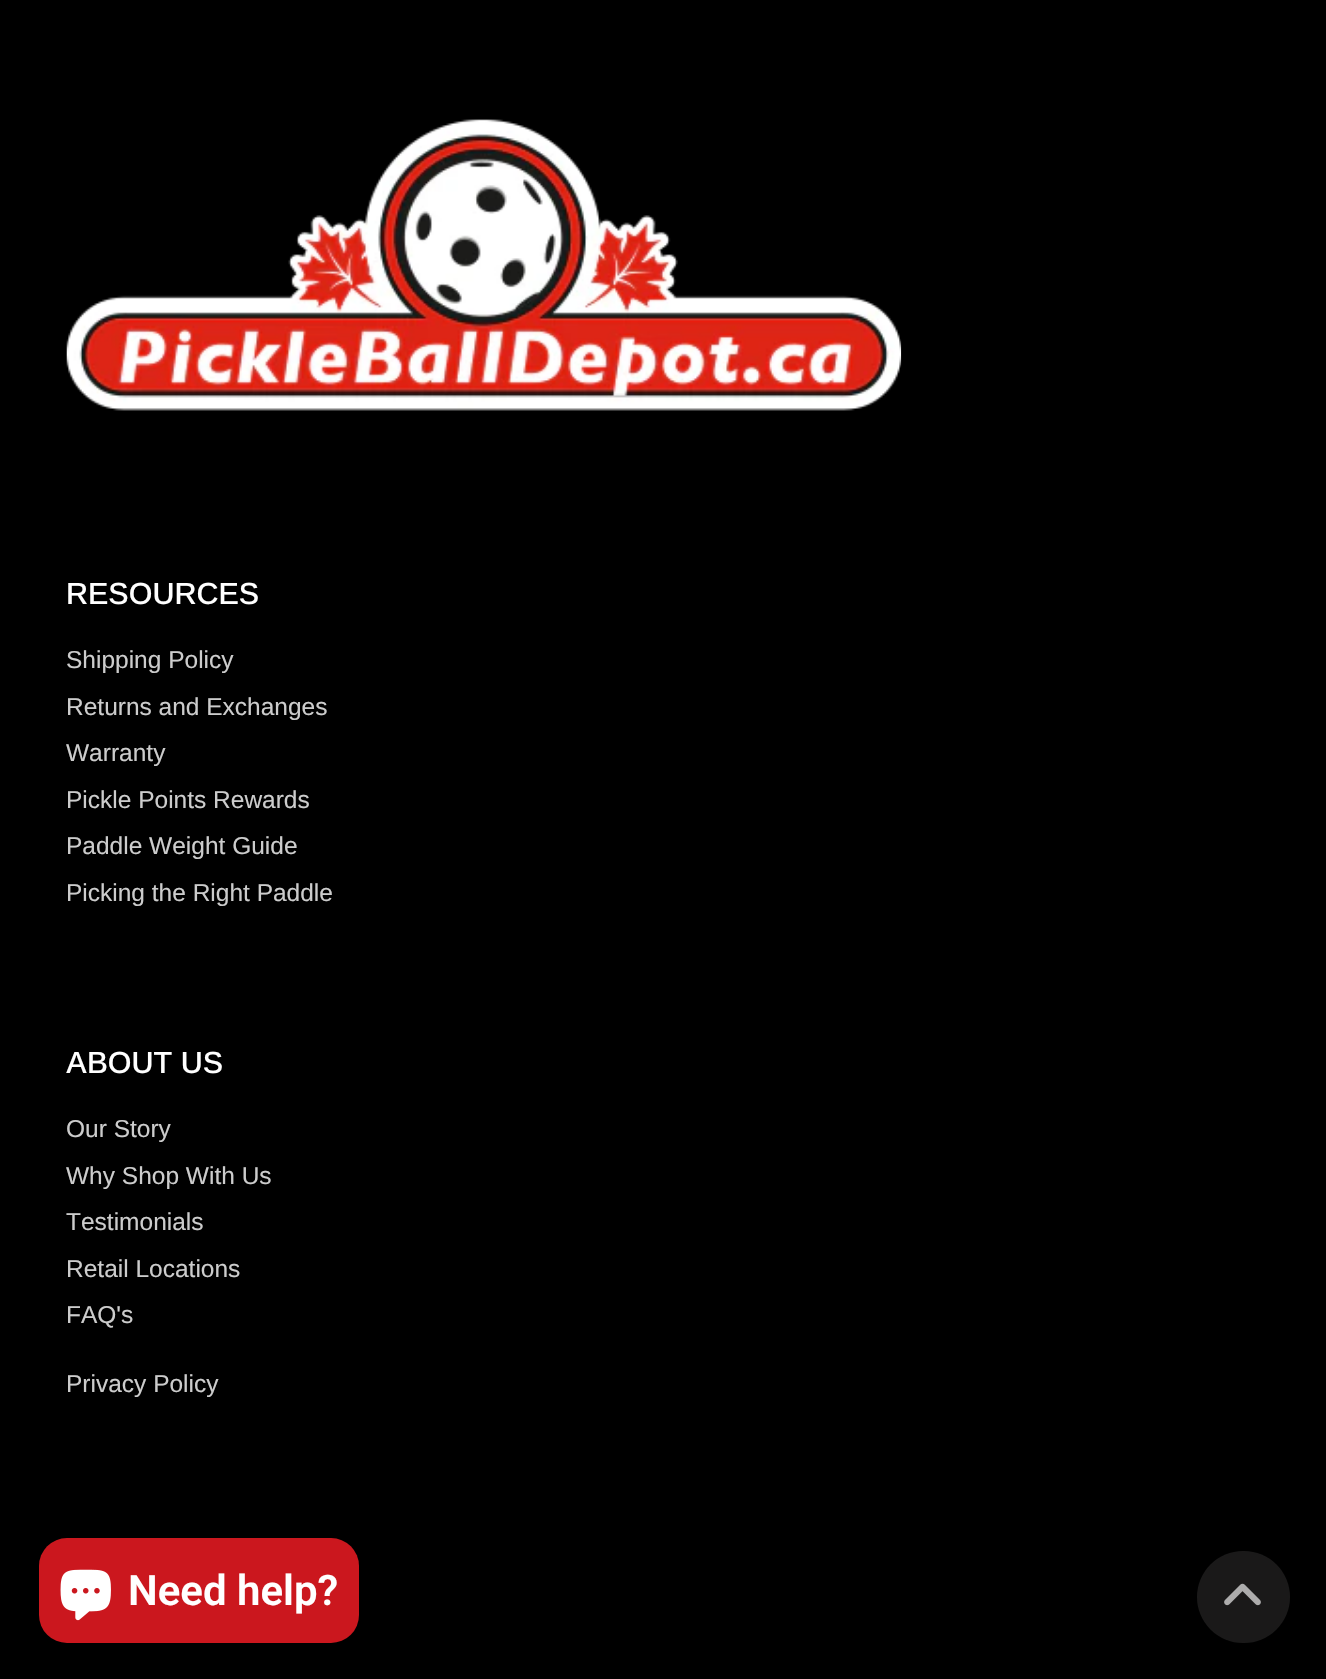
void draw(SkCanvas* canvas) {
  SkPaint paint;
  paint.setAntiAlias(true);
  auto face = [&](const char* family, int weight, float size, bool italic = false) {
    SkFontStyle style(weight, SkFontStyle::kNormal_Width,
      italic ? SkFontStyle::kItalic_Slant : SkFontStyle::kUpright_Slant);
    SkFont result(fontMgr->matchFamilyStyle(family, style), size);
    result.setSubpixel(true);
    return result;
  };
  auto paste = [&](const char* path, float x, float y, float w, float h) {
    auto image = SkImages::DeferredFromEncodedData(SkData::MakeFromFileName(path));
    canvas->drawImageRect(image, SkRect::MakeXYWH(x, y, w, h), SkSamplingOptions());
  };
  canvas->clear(0xff000000);
  paste("img/1.png", 66, 119, 836, 292);
  paint.setColor(0xffcb171e);
  canvas->drawRoundRect(SkRect::MakeXYWH(39, 1538, 320, 105), 28, 28, paint);
  paste("img/2.png", 60, 1569, 51, 52);
  paint.setColor(0xff1a1919);
  canvas->drawRoundRect(SkRect::MakeXYWH(1197, 1551, 93, 92), 46, 46, paint);
  paste("img/3.png", 1224, 1583, 37, 23);
  auto f0 = face("Arimo", 500, 30.5f);
  paint.setColor(0xffffffff);
  canvas->drawString("RESOURCES", 66, 604, f0, paint);
  auto f1 = face("Arimo", 400, 24.5f);
  paint.setColor(0xffcccccc);
  {
    const struct { const char* s; float x, y; } items[] = {
      {"Shipping Policy", 66, 668},
      {"Returns and Exchanges", 66, 715},
      {"Warranty", 66, 761},
      {"Pickle Points Rewards", 66, 808},
      {"Paddle Weight Guide", 66, 854},
      {"Picking the Right Paddle", 66, 901},
    };
    for (auto [s, x, y] : items) {
      canvas->drawString(s, x, y, f1, paint);
    }
  }
  paint.setColor(0xffffffff);
  canvas->drawString("ABOUT US", 66, 1073, f0, paint);
  paint.setColor(0xffcccccc);
  {
    const struct { const char* s; float x, y; } items[] = {
      {"Our Story", 66, 1137},
      {"Why Shop With Us", 66, 1184},
      {"Testimonials", 66, 1230},
      {"Retail Locations", 66, 1277},
      {"FAQ's", 66, 1323},
      {"Privacy Policy", 66, 1392},
    };
    for (auto [s, x, y] : items) {
      canvas->drawString(s, x, y, f1, paint);
    }
  }
  auto f2 = face("Roboto", 600, 42);
  paint.setColor(0xffffffff);
  canvas->drawString("Need help?", 128, 1605, f2, paint);
}
